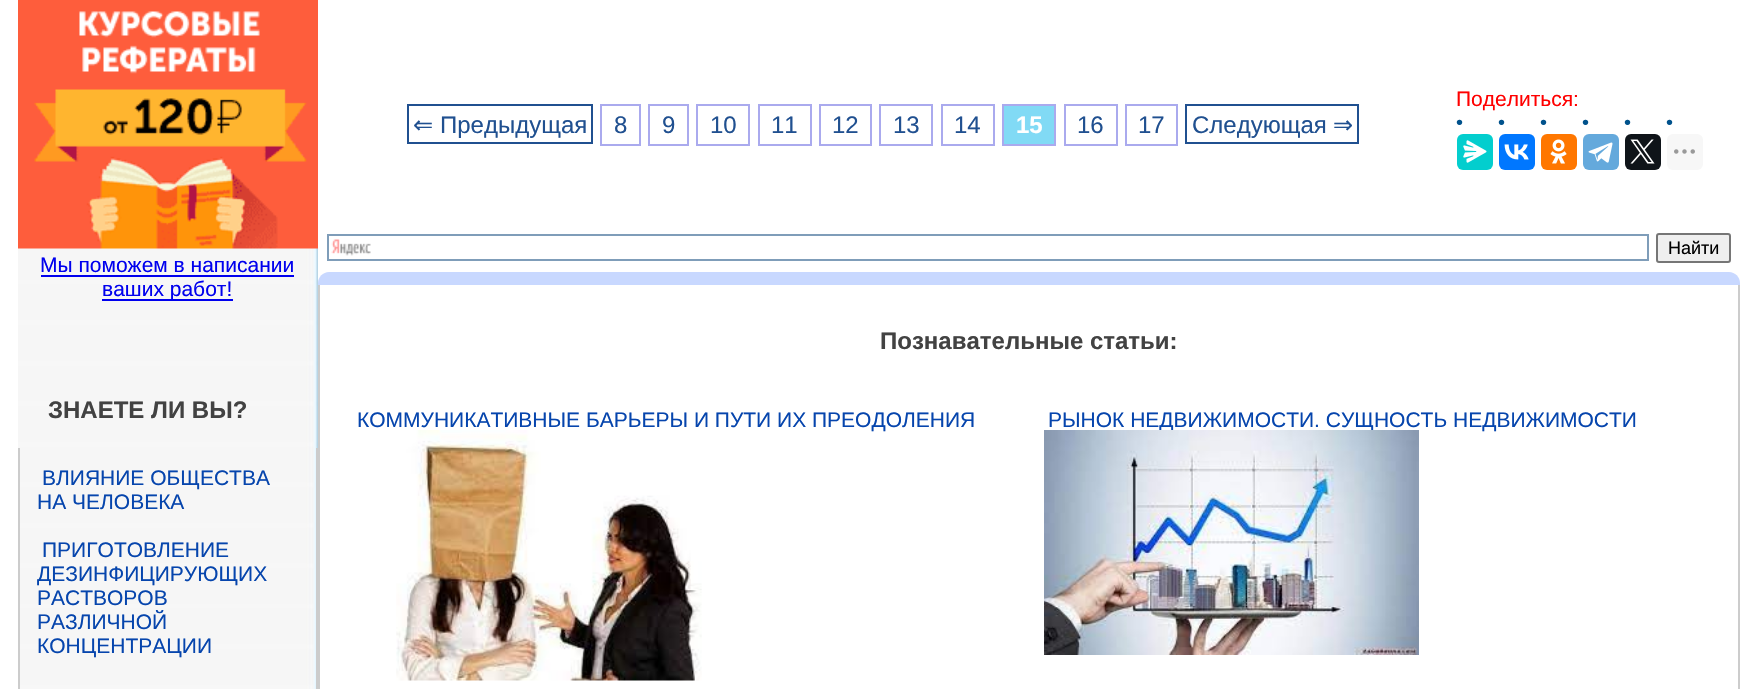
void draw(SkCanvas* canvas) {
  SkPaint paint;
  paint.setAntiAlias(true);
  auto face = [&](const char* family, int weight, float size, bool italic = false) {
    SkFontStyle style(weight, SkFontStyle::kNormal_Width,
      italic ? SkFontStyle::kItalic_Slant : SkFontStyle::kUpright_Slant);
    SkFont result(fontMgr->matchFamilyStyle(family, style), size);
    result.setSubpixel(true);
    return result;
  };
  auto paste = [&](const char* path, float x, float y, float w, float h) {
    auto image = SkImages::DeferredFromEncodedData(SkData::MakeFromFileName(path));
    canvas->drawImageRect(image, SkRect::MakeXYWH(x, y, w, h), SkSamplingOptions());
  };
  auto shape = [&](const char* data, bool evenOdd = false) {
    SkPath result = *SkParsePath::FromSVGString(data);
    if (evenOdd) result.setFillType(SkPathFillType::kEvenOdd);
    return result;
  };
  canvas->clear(0xffffffff);
  paste("img/1.png", 18, 248, 300, 441);
  paste("img/2.png", 18, 0, 300, 249);
  paint.setColor(0xff0000ee);
  canvas->drawRect(SkRect::MakeXYWH(41, 275, 253, 2), paint);
  canvas->drawRect(SkRect::MakeXYWH(102, 299, 131, 2), paint);
  paint.setColor(0xffcccccc);
  canvas->drawPath(shape("M18 448H318V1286C318 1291 313 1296 308 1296H28C23 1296 18 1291 18 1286ZM20 448H316V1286C316 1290 312 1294 308 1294H28C24 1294 20 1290 20 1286Z", true), paint);
  paint.setStroke(true);
  paint.setStrokeWidth(2);
  paint.setColor(0xff205090);
  canvas->drawRect(SkRect::MakeXYWH(408, 105, 184, 38), paint);
  paint.setColor(0xffaaaaee);
  canvas->drawRect(SkRect::MakeXYWH(601, 105, 39, 40), paint);
  canvas->drawRect(SkRect::MakeXYWH(649, 105, 39, 40), paint);
  canvas->drawRect(SkRect::MakeXYWH(697, 105, 52, 40), paint);
  canvas->drawRect(SkRect::MakeXYWH(759, 105, 52, 40), paint);
  canvas->drawRect(SkRect::MakeXYWH(820, 105, 51, 40), paint);
  canvas->drawRect(SkRect::MakeXYWH(880, 105, 52, 40), paint);
  canvas->drawRect(SkRect::MakeXYWH(942, 105, 52, 40), paint);
  paint.setStroke(false);
  paint.setColor(0xff81daf5);
  canvas->drawRect(SkRect::MakeXYWH(1003, 105, 52, 40), paint);
  paint.setStroke(true);
  paint.setColor(0xffaaaaee);
  canvas->drawRect(SkRect::MakeXYWH(1003, 105, 52, 40), paint);
  canvas->drawRect(SkRect::MakeXYWH(1065, 105, 52, 40), paint);
  canvas->drawRect(SkRect::MakeXYWH(1126, 105, 51, 40), paint);
  paint.setColor(0xff205090);
  canvas->drawRect(SkRect::MakeXYWH(1186, 105, 172, 38), paint);
  paint.setStroke(false);
  paint.setColor(0xff03cece);
  canvas->drawRoundRect(SkRect::MakeXYWH(1457, 134, 36, 36), 6, 6, paint);
  paste("img/3.png", 1463, 140, 24, 23);
  paint.setColor(0xff0077ff);
  canvas->drawRoundRect(SkRect::MakeXYWH(1499, 134, 36, 36), 6, 6, paint);
  paste("img/4.png", 1504, 144, 25, 16);
  paint.setColor(0xffff7700);
  canvas->drawRoundRect(SkRect::MakeXYWH(1541, 134, 36, 36), 6, 6, paint);
  paste("img/5.png", 1550, 139, 17, 25);
  paint.setColor(0xff64a9dc);
  canvas->drawRoundRect(SkRect::MakeXYWH(1583, 134, 36, 36), 6, 6, paint);
  paste("img/6.png", 1588, 142, 25, 21);
  paint.setColor(0xff0f1419);
  canvas->drawRoundRect(SkRect::MakeXYWH(1625, 134, 36, 36), 6, 6, paint);
  paste("img/7.png", 1630, 139, 25, 25);
  paint.setColor(0xfff7f7f7);
  canvas->drawRoundRect(SkRect::MakeXYWH(1667, 134, 36, 36), 6, 6, paint);
  paste("img/8.png", 1674, 149, 21, 5);
  paste("img/9.png", 331, 239, 40, 17);
  paint.setStroke(true);
  paint.setColor(0xff7f9db9);
  canvas->drawRect(SkRect::MakeXYWH(328, 235, 1320, 25), paint);
  paint.setStroke(false);
  paint.setColor(0xffefefef);
  canvas->drawRoundRect(SkRect::MakeXYWH(1657, 234, 73, 28), 2, 2, paint);
  paint.setStroke(true);
  paint.setColor(0xff767676);
  canvas->drawRoundRect(SkRect::MakeXYWH(1657, 234, 73, 28), 2, 2, paint);
  paint.setStroke(false);
  paint.setColor(0xffc8d8ff);
  canvas->drawPath(shape("M329 272H1729C1735 272 1740 277 1740 283V285H318V283C318 277 323 272 329 272Z"), paint);
  paint.setColor(0xffcccccc);
  canvas->drawPath(shape("M318 285H1740V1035C1740 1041 1735 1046 1730 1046H328C323 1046 318 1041 318 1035ZM320 285H1738V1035C1738 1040 1734 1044 1730 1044H328C324 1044 320 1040 320 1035Z", true), paint);
  auto f0 = face("Liberation Sans", 400, 21);
  paint.setColor(0xff0000ee);
  canvas->drawString("Мы поможем в написании", 40, 272, f0, paint);
  canvas->drawString("ваших работ!", 102, 296, f0, paint);
  auto f1 = face("Liberation Sans", 700, 24);
  paint.setColor(0xff424242);
  canvas->drawString("ЗНАЕТЕ ЛИ ВЫ?", 48, 418, f1, paint);
  paint.setColor(0xff0645ad);
  {
    const struct { const char* s; float x, y; } items[] = {
      {"ВЛИЯНИЕ ОБЩЕСТВА", 42, 485},
      {"НА ЧЕЛОВЕКА", 37, 509},
      {"ПРИГОТОВЛЕНИЕ", 42, 557},
      {"ДЕЗИНФИЦИРУЮЩИХ", 37, 581},
      {"РАСТВОРОВ", 37, 605},
      {"РАЗЛИЧНОЙ", 37, 629},
      {"КОНЦЕНТРАЦИИ", 37, 653},
    };
    for (auto [s, x, y] : items) {
      canvas->drawString(s, x, y, f0, paint);
    }
  }
  auto f2 = face("DejaVu Sans", 400, 24);
  paint.setColor(0xff205090);
  canvas->drawString("⇐", 413, 133, f2, paint);
  auto f3 = face("Liberation Sans", 400, 24);
  {
    const struct { const char* s; float x, y; } items[] = {
      {"Предыдущая", 440, 133},
      {"8", 614, 133},
      {"9", 662, 133},
      {"10", 710, 133},
      {"11", 771, 133},
      {"12", 832, 133},
      {"13", 893, 133},
      {"14", 954, 133},
    };
    for (auto [s, x, y] : items) {
      canvas->drawString(s, x, y, f3, paint);
    }
  }
  paint.setColor(0xffffffff);
  canvas->drawString("15", 1016, 133, f1, paint);
  paint.setColor(0xff205090);
  {
    const struct { const char* s; float x, y; } items[] = {
      {"16", 1077, 133},
      {"17", 1138, 133},
      {"Следующая", 1192, 133},
    };
    for (auto [s, x, y] : items) {
      canvas->drawString(s, x, y, f3, paint);
    }
  }
  canvas->drawString("⇒", 1333, 133, f2, paint);
  paint.setColor(0xffff0000);
  canvas->drawString("Поделиться:", 1456, 106, f0, paint);
  auto f4 = face("Liberation Sans", 400, 20);
  paint.setColor(0xff00528c);
  {
    const struct { const char* s; float x, y; } items[] = {
      {"•", 1456, 129},
      {"•", 1498, 129},
      {"•", 1540, 129},
      {"•", 1582, 129},
      {"•", 1624, 129},
      {"•", 1666, 129},
    };
    for (auto [s, x, y] : items) {
      canvas->drawString(s, x, y, f4, paint);
    }
  }
  auto f5 = face("Liberation Sans", 400, 18);
  paint.setColor(0xff000000);
  canvas->drawString("Найти", 1668, 254, f5, paint);
  paint.setColor(0xff424242);
  canvas->drawString("Познавательные статьи:", 880, 349, f1, paint);
  paint.setColor(0xff0645ad);
  canvas->drawString("КОММУНИКАТИВНЫЕ БАРЬЕРЫ И ПУТИ ИХ ПРЕОДОЛЕНИЯ", 357, 427, f0, paint);
  paste("img/10.png", 396, 430, 306, 251);
  canvas->drawString("РЫНОК НЕДВИЖИМОСТИ. СУЩНОСТЬ НЕДВИЖИМОСТИ", 1048, 427, f0, paint);
  paste("img/11.png", 1044, 430, 375, 225);
}
